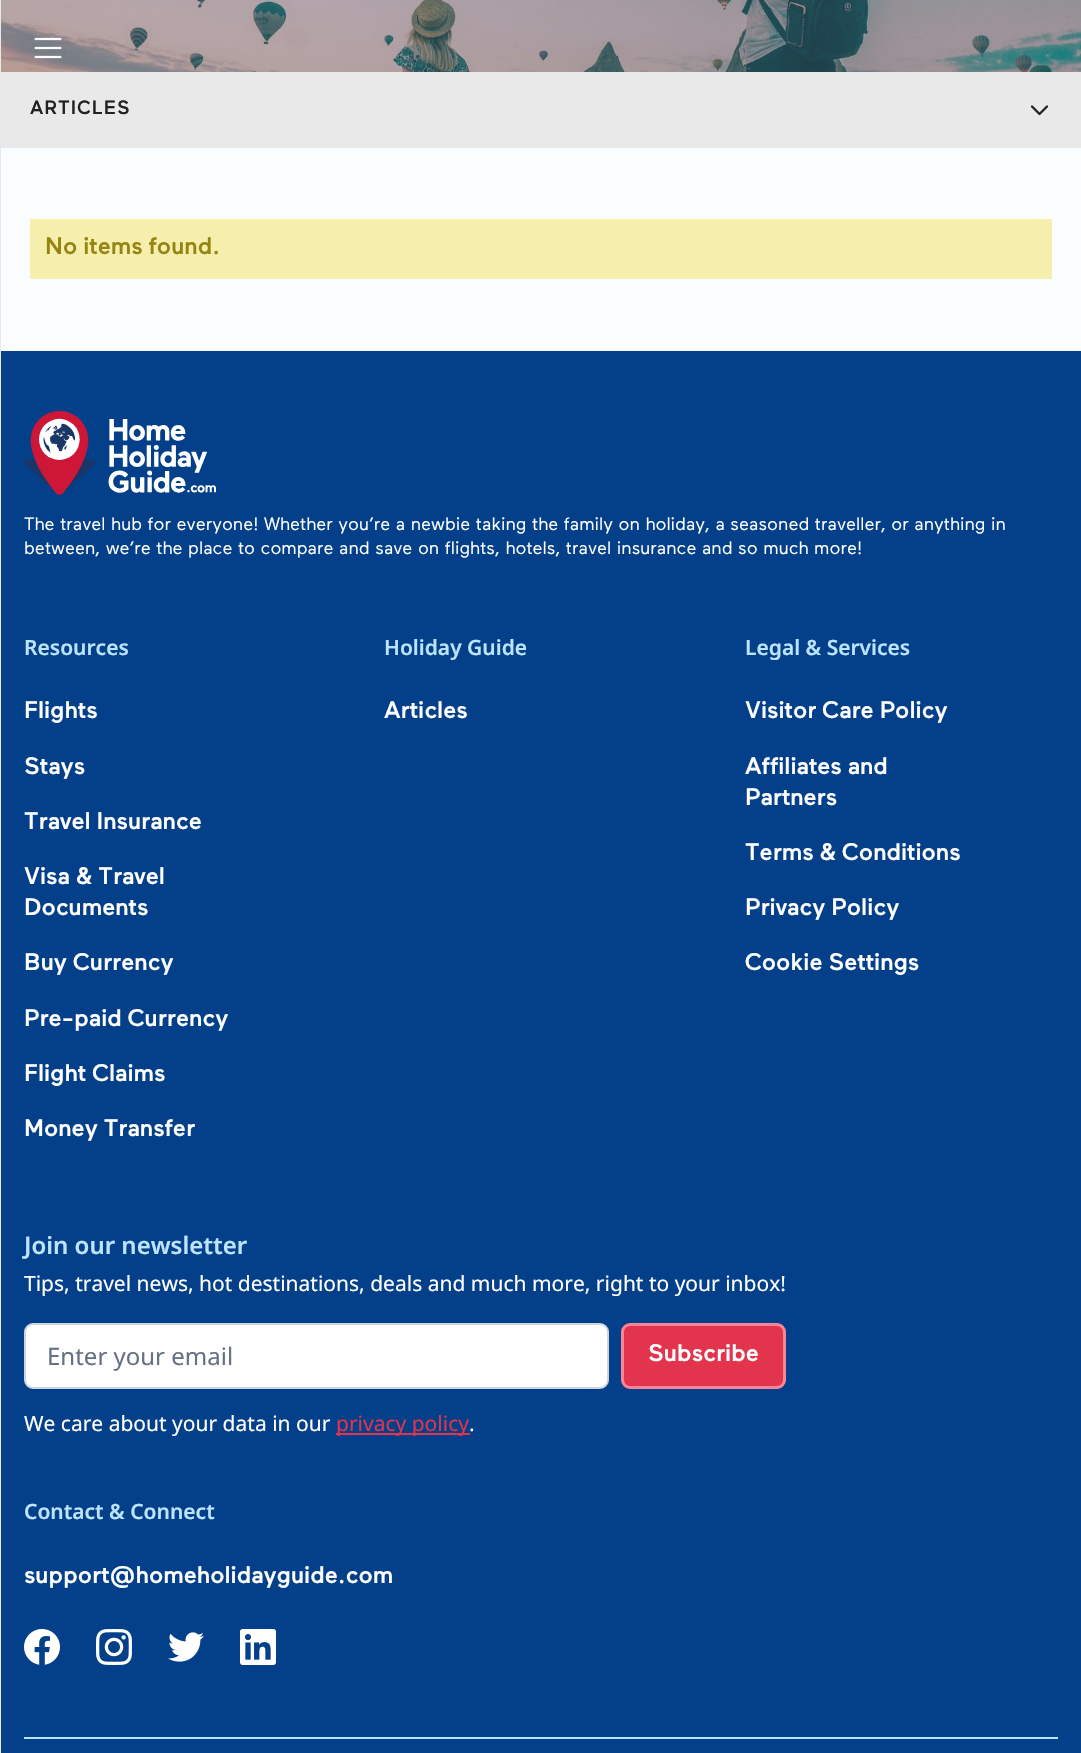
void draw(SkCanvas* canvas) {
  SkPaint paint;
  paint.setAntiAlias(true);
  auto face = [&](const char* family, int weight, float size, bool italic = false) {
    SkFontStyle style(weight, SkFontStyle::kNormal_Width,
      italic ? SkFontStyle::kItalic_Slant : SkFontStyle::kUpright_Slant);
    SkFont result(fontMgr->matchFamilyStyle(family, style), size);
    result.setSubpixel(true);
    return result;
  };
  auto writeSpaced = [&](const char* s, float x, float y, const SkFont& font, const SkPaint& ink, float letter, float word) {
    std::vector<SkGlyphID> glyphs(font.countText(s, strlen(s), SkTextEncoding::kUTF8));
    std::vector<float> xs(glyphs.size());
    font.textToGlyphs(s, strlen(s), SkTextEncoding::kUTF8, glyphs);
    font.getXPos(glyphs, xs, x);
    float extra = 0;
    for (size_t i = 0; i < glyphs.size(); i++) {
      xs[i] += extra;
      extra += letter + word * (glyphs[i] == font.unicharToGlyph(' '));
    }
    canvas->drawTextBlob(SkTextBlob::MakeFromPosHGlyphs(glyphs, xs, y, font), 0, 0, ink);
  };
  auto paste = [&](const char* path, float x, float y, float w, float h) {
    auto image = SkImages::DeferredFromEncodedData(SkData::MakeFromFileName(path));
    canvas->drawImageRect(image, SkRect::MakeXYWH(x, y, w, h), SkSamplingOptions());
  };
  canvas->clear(0xfffafdff);
  paint.setColor(0xffe9e9e9);
  canvas->drawRect(SkRect::MakeXYWH(0, 0, 1, 1753), paint);
  paste("img/2.png", 1, 0, 1080, 72);
  paste("img/1.png", 34, 37, 28, 22);
  canvas->drawRect(SkRect::MakeXYWH(1, 72, 1080, 74), paint);
  canvas->drawRect(SkRect::MakeXYWH(0, 146, 1081, 2), paint);
  paste("img/3.png", 1030, 105, 19, 11);
  paint.setColor(0xfff6eead);
  canvas->drawRect(SkRect::MakeXYWH(30, 219, 1022, 60), paint);
  paint.setColor(0xff034089);
  canvas->drawRect(SkRect::MakeXYWH(1, 351, 1080, 1402), paint);
  paste("img/4.png", 24, 411, 192, 84);
  paint.setColor(0xffffffff);
  canvas->drawRoundRect(SkRect::MakeXYWH(25, 1324, 583, 64), 8, 8, paint);
  paint.setStroke(true);
  paint.setStrokeWidth(2);
  paint.setColor(0xffd0d5dd);
  canvas->drawRoundRect(SkRect::MakeXYWH(25, 1324, 583, 64), 8, 8, paint);
  paint.setStroke(false);
  paint.setColor(0xffe2344d);
  canvas->drawRoundRect(SkRect::MakeXYWH(622.5f, 1324.5f, 162, 63), 7.5f, 7.5f, paint);
  paint.setStroke(true);
  paint.setStrokeWidth(3);
  paint.setColor(0xffff8596);
  canvas->drawRoundRect(SkRect::MakeXYWH(622.5f, 1324.5f, 162, 63), 7.5f, 7.5f, paint);
  paint.setStroke(false);
  paint.setColor(0xffe2344d);
  canvas->drawRect(SkRect::MakeXYWH(336, 1433, 134, 2), paint);
  paste("img/5.png", 24, 1629, 36, 36);
  paste("img/6.png", 96, 1629, 36, 36);
  paste("img/7.png", 168, 1632, 36, 30);
  paste("img/8.png", 240, 1629, 36, 36);
  paint.setColor(0xffbce3ff);
  canvas->drawRect(SkRect::MakeXYWH(24, 1737, 1034, 2), paint);
  auto f0 = face("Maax", 500, 19.25f);
  paint.setColor(0xff222222);
  writeSpaced("ARTICLES", 30, 114, f0, paint, 1, 0);
  auto f1 = face("Maax", 500, 24);
  paint.setColor(0xff948410);
  canvas->drawString("No items found.", 45, 254, f1, paint);
  auto f2 = face("Maax", 400, 18);
  paint.setColor(0xffffffff);
  canvas->drawString("The travel hub for everyone! Whether you’re a newbie taking the family on holiday, a seasoned traveller, or anything in", 24, 530, f2, paint);
  canvas->drawString("between, we’re the place to compare and save on flights, hotels, travel insurance and so much more!", 24, 554, f2, paint);
  auto f3 = face("Noto Sans", 600, 21);
  paint.setColor(0xffbce3ff);
  canvas->drawString("Resources", 24, 655, f3, paint);
  paint.setColor(0xffffffff);
  {
    const struct { const char* s; float x, y; } items[] = {
      {"Flights", 24, 718},
      {"Stays", 24, 774},
      {"Travel Insurance", 24, 829},
      {"Visa & Travel", 24, 884},
      {"Documents", 24, 915},
      {"Buy Currency", 24, 970},
      {"Pre-paid Currency", 24, 1026},
      {"Flight Claims", 24, 1081},
      {"Money Transfer", 24, 1136},
    };
    for (auto [s, x, y] : items) {
      canvas->drawString(s, x, y, f1, paint);
    }
  }
  paint.setColor(0xffbce3ff);
  canvas->drawString("Holiday Guide", 384, 655, f3, paint);
  paint.setColor(0xffffffff);
  canvas->drawString("Articles", 384, 718, f1, paint);
  paint.setColor(0xffbce3ff);
  canvas->drawString("Legal & Services", 745, 655, f3, paint);
  paint.setColor(0xffffffff);
  {
    const struct { const char* s; float x, y; } items[] = {
      {"Visitor Care Policy", 745, 718},
      {"Affiliates and", 745, 774},
      {"Partners", 745, 805},
      {"Terms & Conditions", 745, 860},
      {"Privacy Policy", 745, 915},
      {"Cookie Settings", 745, 970},
    };
    for (auto [s, x, y] : items) {
      canvas->drawString(s, x, y, f1, paint);
    }
  }
  auto f4 = face("Noto Sans", 600, 24);
  paint.setColor(0xffbce3ff);
  canvas->drawString("Join our newsletter", 24, 1254, f4, paint);
  auto f5 = face("Noto Sans", 400, 21);
  paint.setColor(0xffffffff);
  canvas->drawString("Tips, travel news, hot destinations, deals and much more, right to your inbox!", 24, 1291, f5, paint);
  auto f6 = face("Noto Sans", 400, 24);
  paint.setColor(0xff667085);
  canvas->drawString("Enter your email", 47, 1365, f6, paint);
  paint.setColor(0xffffffff);
  canvas->drawString("Subscribe", 648, 1361, f1, paint);
  canvas->drawString("We care about your data in our", 24, 1431, f5, paint);
  paint.setColor(0xffe2344d);
  canvas->drawString("privacy policy", 336, 1431, f5, paint);
  paint.setColor(0xffffffff);
  canvas->drawString(".", 469, 1431, f5, paint);
  paint.setColor(0xffbce3ff);
  canvas->drawString("Contact & Connect", 24, 1519, f3, paint);
  paint.setColor(0xffffffff);
  canvas->drawString("support@homeholidayguide.com", 24, 1583, f1, paint);
}
